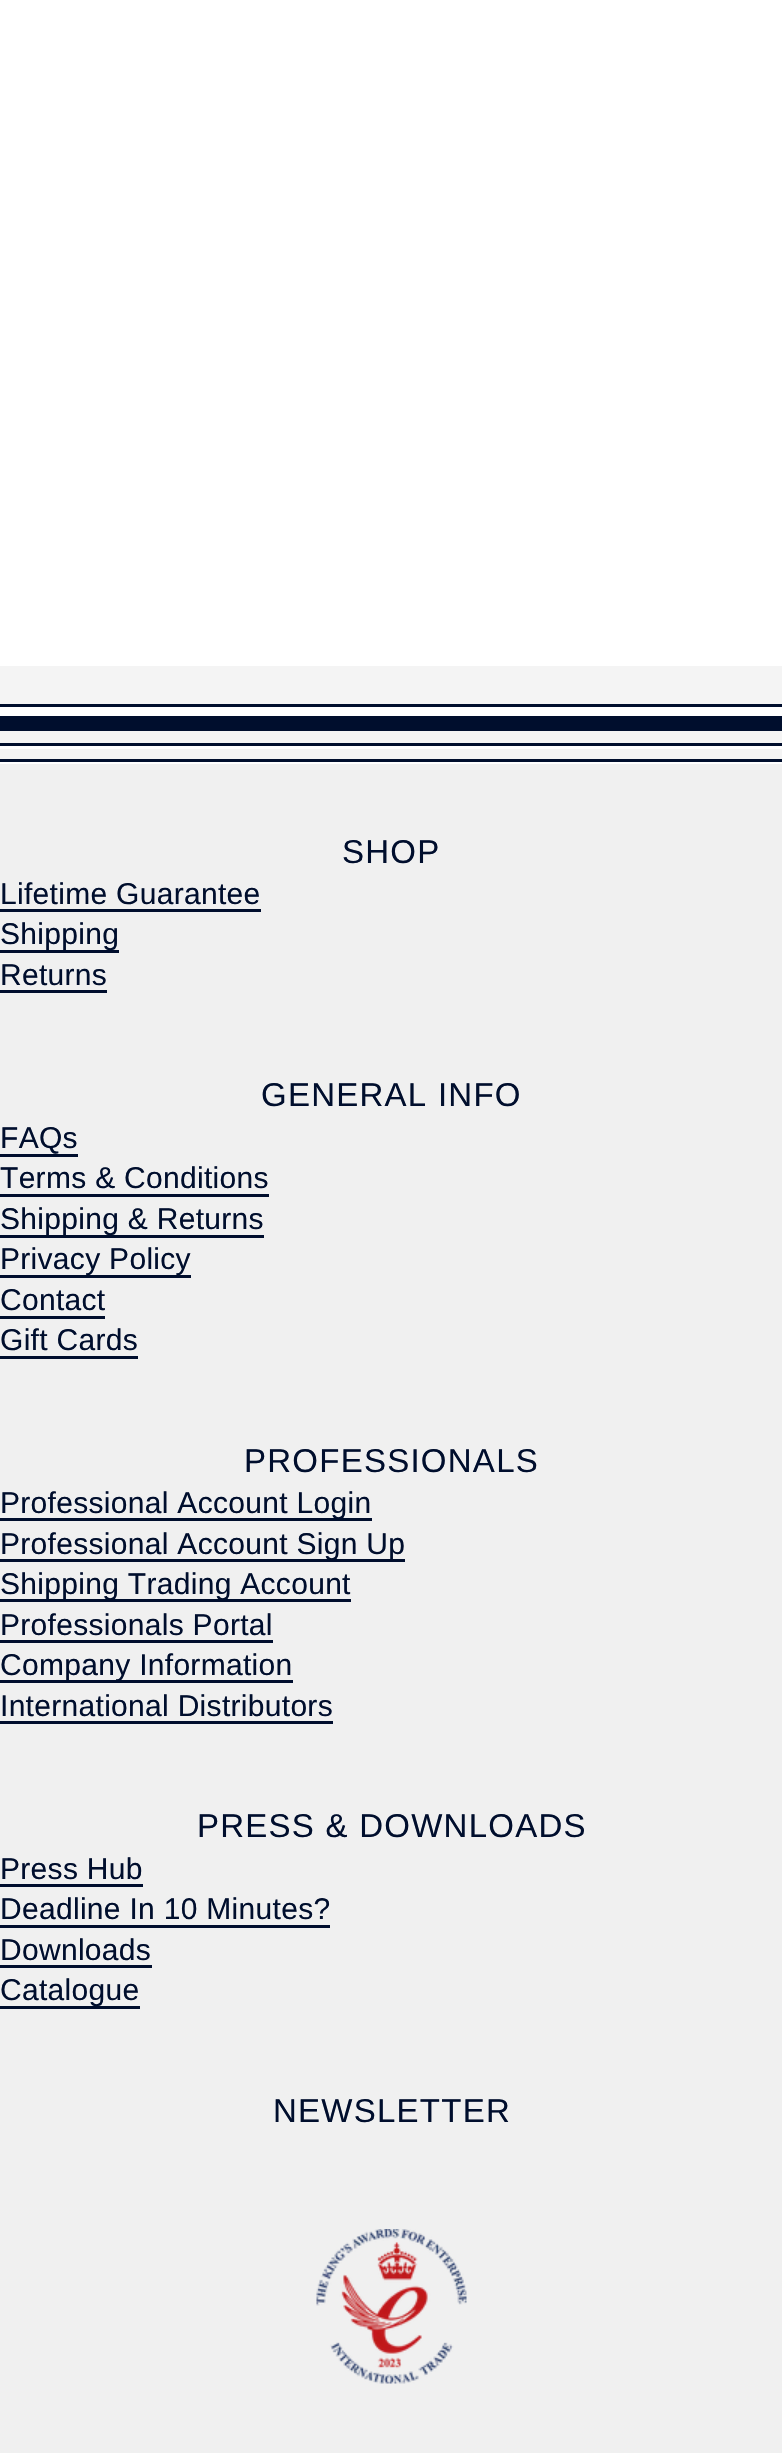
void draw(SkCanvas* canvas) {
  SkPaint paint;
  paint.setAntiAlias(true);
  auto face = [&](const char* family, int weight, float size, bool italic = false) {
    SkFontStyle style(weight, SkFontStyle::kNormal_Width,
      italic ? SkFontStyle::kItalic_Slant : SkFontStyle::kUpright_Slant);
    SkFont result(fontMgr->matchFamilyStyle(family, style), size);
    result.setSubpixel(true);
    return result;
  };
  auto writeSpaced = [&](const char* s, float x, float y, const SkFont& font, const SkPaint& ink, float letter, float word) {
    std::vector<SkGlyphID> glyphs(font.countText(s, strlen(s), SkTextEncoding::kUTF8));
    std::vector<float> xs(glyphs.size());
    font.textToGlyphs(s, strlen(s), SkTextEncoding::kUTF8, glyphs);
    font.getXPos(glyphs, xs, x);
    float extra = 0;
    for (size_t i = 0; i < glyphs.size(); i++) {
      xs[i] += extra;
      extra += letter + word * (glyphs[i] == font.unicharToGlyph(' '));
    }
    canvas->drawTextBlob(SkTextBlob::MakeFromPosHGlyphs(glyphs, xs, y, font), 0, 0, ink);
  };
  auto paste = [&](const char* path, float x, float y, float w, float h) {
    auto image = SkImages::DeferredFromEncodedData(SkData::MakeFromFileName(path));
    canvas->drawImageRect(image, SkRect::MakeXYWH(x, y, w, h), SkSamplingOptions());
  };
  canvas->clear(0xffffffff);
  {
    const struct { float x, y, w, h; SkColor color; } items[] = {
      {0, 666, 782, 38, 0xfff4f4f4},
      {0, 704, 782, 3, 0xff000e2d},
      {0, 731, 782, 12, 0xfff4f4f4},
      {0, 716, 782, 15, 0xff000e2d},
      {0, 743, 782, 3, 0xff000e2d},
      {0, 749, 782, 10, 0xfff4f4f4},
      {0, 759, 782, 3, 0xff000e2d},
      {0, 764, 782, 1689, 0xfff0f0f0},
      {0, 909, 261, 3, 0xff000e2d},
      {0, 950, 119, 3, 0xff000e2d},
      {0, 990, 107, 3, 0xff000e2d},
      {0, 1154, 78, 3, 0xff000e2d},
      {0, 1194, 269, 3, 0xff000e2d},
      {0, 1235, 264, 3, 0xff000e2d},
      {0, 1275, 191, 3, 0xff000e2d},
      {0, 1316, 105, 3, 0xff000e2d},
      {0, 1356, 138, 3, 0xff000e2d},
      {0, 1518, 372, 3, 0xff000e2d},
      {0, 1559, 405, 3, 0xff000e2d},
      {0, 1599, 351, 3, 0xff000e2d},
      {0, 1640, 273, 3, 0xff000e2d},
      {0, 1680, 293, 3, 0xff000e2d},
      {0, 1721, 333, 3, 0xff000e2d},
      {0, 1884, 143, 3, 0xff000e2d},
      {0, 1925, 330, 3, 0xff000e2d},
      {0, 1965, 152, 3, 0xff000e2d},
      {0, 2006, 140, 3, 0xff000e2d},
    };
    for (auto [x, y, w, h, color] : items) {
      paint.setColor(color);
      canvas->drawRect(SkRect::MakeXYWH(x, y, w, h), paint);
    }
  }
  paste("img/1.png", 316, 2229, 151, 155);
  auto f0 = face("Liberation Sans", 400, 33);
  writeSpaced("SHOP", 342, 863, f0, paint, 1.25f, 0);
  auto f1 = face("Liberation Sans", 400, 30);
  {
    const struct { const char* s; float x, y; } items[] = {
      {"Lifetime Guarantee", 0, 904},
      {"Shipping", 0, 944},
      {"Returns", 0, 985},
    };
    for (auto [s, x, y] : items) {
      writeSpaced(s, x, y, f1, paint, 0.3f, 0);
    }
  }
  writeSpaced("GENERAL INFO", 261, 1106, f0, paint, 1.25f, 0);
  {
    const struct { const char* s; float x, y; } items[] = {
      {"FAQs", 0, 1148},
      {"Terms & Conditions", 0, 1188},
      {"Shipping & Returns", 0, 1229},
      {"Privacy Policy", 0, 1269},
      {"Contact", 0, 1310},
      {"Gift Cards", 0, 1350},
    };
    for (auto [s, x, y] : items) {
      writeSpaced(s, x, y, f1, paint, 0.3f, 0);
    }
  }
  writeSpaced("PROFESSIONALS", 244, 1472, f0, paint, 1.25f, 0);
  {
    const struct { const char* s; float x, y; } items[] = {
      {"Professional Account Login", 0, 1513},
      {"Professional Account Sign Up", 0, 1554},
      {"Shipping Trading Account", 0, 1594},
      {"Professionals Portal", 0, 1635},
      {"Company Information", 0, 1675},
      {"International Distributors", 0, 1716},
    };
    for (auto [s, x, y] : items) {
      writeSpaced(s, x, y, f1, paint, 0.3f, 0);
    }
  }
  writeSpaced("PRESS & DOWNLOADS", 197, 1837, f0, paint, 1.25f, 0);
  {
    const struct { const char* s; float x, y; } items[] = {
      {"Press Hub", 0, 1879},
      {"Deadline In 10 Minutes?", 0, 1919},
      {"Downloads", 0, 1960},
      {"Catalogue", 0, 2000},
    };
    for (auto [s, x, y] : items) {
      writeSpaced(s, x, y, f1, paint, 0.3f, 0);
    }
  }
  writeSpaced("NEWSLETTER", 273, 2122, f0, paint, 1.25f, 0);
}
